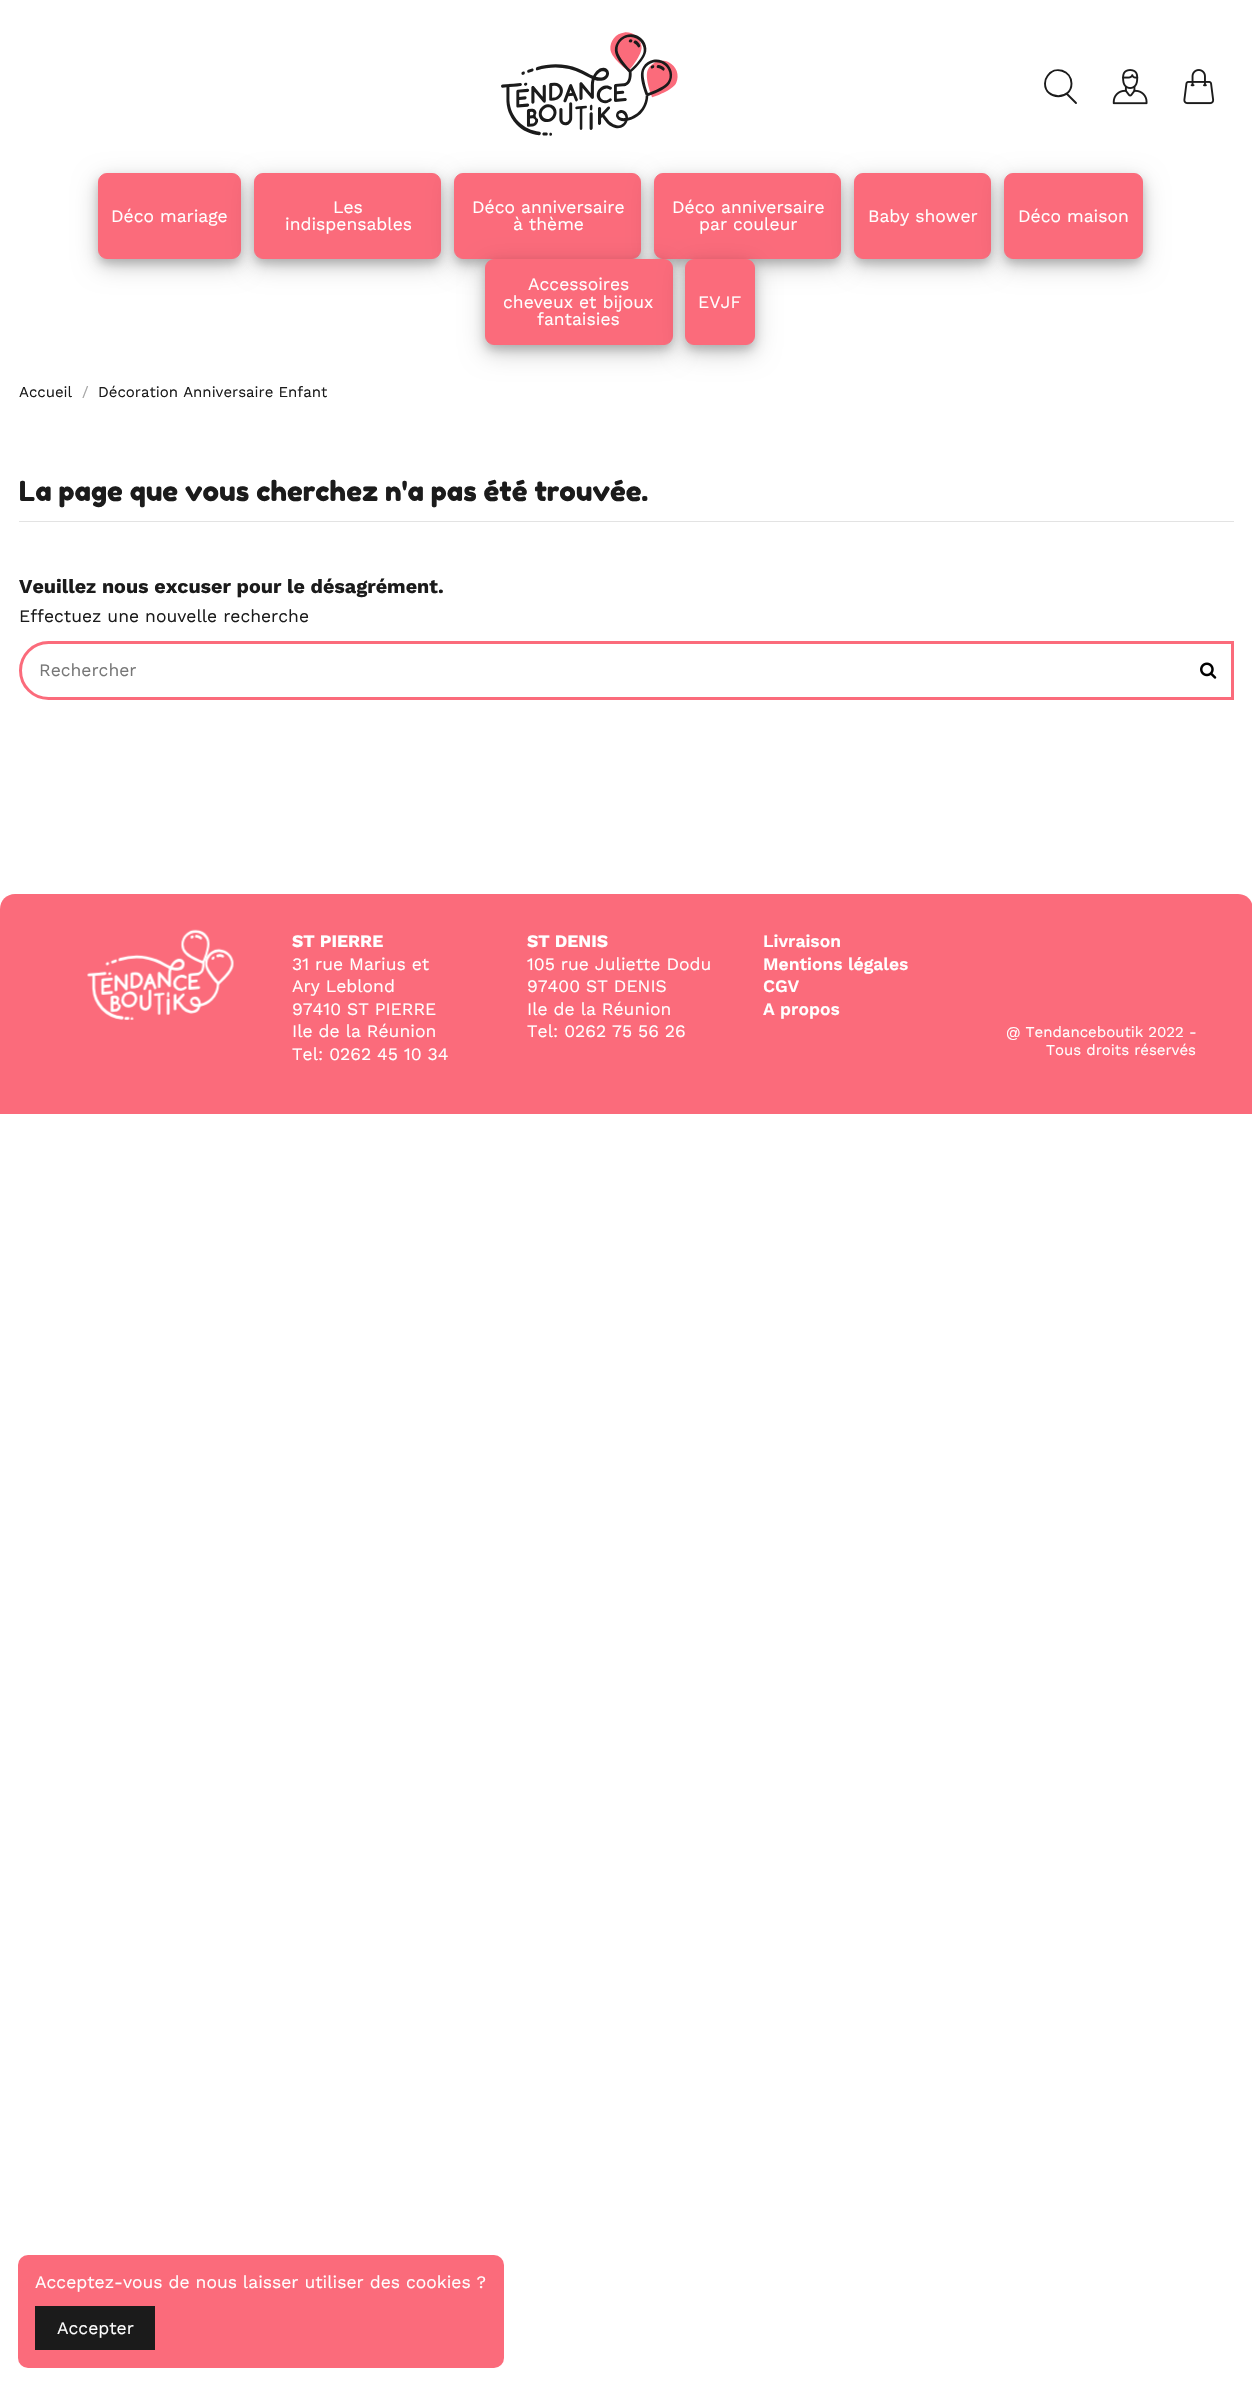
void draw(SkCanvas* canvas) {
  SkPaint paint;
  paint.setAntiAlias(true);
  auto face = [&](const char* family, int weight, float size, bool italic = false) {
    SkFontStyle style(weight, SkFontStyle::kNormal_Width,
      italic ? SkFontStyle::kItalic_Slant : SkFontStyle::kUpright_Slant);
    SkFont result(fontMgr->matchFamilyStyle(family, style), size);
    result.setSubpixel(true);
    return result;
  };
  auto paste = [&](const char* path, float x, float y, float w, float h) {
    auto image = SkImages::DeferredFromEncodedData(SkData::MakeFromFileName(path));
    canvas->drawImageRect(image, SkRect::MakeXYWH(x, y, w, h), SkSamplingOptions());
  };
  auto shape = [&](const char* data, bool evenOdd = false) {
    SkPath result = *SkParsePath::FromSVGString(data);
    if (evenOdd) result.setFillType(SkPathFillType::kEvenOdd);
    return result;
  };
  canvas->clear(0xffffffff);
  paste("img/1.png", 501, 32, 177, 104);
  paint.setStroke(true);
  paint.setStrokeWidth(1.9f);
  paint.setStrokeCap(SkPaint::kRound_Cap);
  paint.setStrokeJoin(SkPaint::kRound_Join);
  paint.setColor(0xff1b1b1b);
  canvas->drawPath(shape("M1071.5 83.5C1071.5 100.5 1045 100.5 1045 83.5C1045 80.5 1046 78 1047.5 76C1054.5 65 1071.5 70.5 1071.5 83.5ZM1067 94L1076 103"), paint);
  paste("img/2.png", 1112, 69, 36, 36);
  paste("img/3.png", 1183, 69, 32, 36);
  paint.setStroke(false);
  paint.setColor(0x30000000);
  paint.setMaskFilter(SkMaskFilter::MakeBlur(kNormal_SkBlurStyle, 12.5f));
  canvas->drawRoundRect(SkRect::MakeXYWH(98, 180, 143, 86), 9, 9, paint);
  paint.setMaskFilter(nullptr);
  paint.setColor(0x33000000);
  paint.setMaskFilter(SkMaskFilter::MakeBlur(kNormal_SkBlurStyle, 5));
  canvas->drawRoundRect(SkRect::MakeXYWH(98, 178, 143, 86), 9, 9, paint);
  paint.setMaskFilter(nullptr);
  paint.setColor(0xfffb6b7b);
  canvas->drawRoundRect(SkRect::MakeXYWH(98.5f, 173.5f, 142, 85), 8.5f, 8.5f, paint);
  paint.setStroke(true);
  paint.setStrokeWidth(1);
  paint.setStrokeCap(SkPaint::kButt_Cap);
  paint.setStrokeJoin(SkPaint::kMiter_Join);
  canvas->drawRoundRect(SkRect::MakeXYWH(98.5f, 173.5f, 142, 85), 8.5f, 8.5f, paint);
  paint.setStroke(false);
  paint.setColor(0x30000000);
  paint.setMaskFilter(SkMaskFilter::MakeBlur(kNormal_SkBlurStyle, 12.5f));
  canvas->drawRoundRect(SkRect::MakeXYWH(254, 180, 187, 86), 9, 9, paint);
  paint.setMaskFilter(nullptr);
  paint.setColor(0x33000000);
  paint.setMaskFilter(SkMaskFilter::MakeBlur(kNormal_SkBlurStyle, 5));
  canvas->drawRoundRect(SkRect::MakeXYWH(254, 178, 187, 86), 9, 9, paint);
  paint.setMaskFilter(nullptr);
  paint.setColor(0xfffb6b7b);
  canvas->drawRoundRect(SkRect::MakeXYWH(254.5f, 173.5f, 186, 85), 8.5f, 8.5f, paint);
  paint.setStroke(true);
  canvas->drawRoundRect(SkRect::MakeXYWH(254.5f, 173.5f, 186, 85), 8.5f, 8.5f, paint);
  paint.setStroke(false);
  paint.setColor(0x30000000);
  paint.setMaskFilter(SkMaskFilter::MakeBlur(kNormal_SkBlurStyle, 12.5f));
  canvas->drawRoundRect(SkRect::MakeXYWH(454, 180, 187, 86), 9, 9, paint);
  paint.setMaskFilter(nullptr);
  paint.setColor(0x33000000);
  paint.setMaskFilter(SkMaskFilter::MakeBlur(kNormal_SkBlurStyle, 5));
  canvas->drawRoundRect(SkRect::MakeXYWH(454, 178, 187, 86), 9, 9, paint);
  paint.setMaskFilter(nullptr);
  paint.setColor(0xfffb6b7b);
  canvas->drawRoundRect(SkRect::MakeXYWH(454.5f, 173.5f, 186, 85), 8.5f, 8.5f, paint);
  paint.setStroke(true);
  canvas->drawRoundRect(SkRect::MakeXYWH(454.5f, 173.5f, 186, 85), 8.5f, 8.5f, paint);
  paint.setStroke(false);
  paint.setColor(0x30000000);
  paint.setMaskFilter(SkMaskFilter::MakeBlur(kNormal_SkBlurStyle, 12.5f));
  canvas->drawRoundRect(SkRect::MakeXYWH(654, 180, 187, 86), 9, 9, paint);
  paint.setMaskFilter(nullptr);
  paint.setColor(0x33000000);
  paint.setMaskFilter(SkMaskFilter::MakeBlur(kNormal_SkBlurStyle, 5));
  canvas->drawRoundRect(SkRect::MakeXYWH(654, 178, 187, 86), 9, 9, paint);
  paint.setMaskFilter(nullptr);
  paint.setColor(0xfffb6b7b);
  canvas->drawRoundRect(SkRect::MakeXYWH(654.5f, 173.5f, 186, 85), 8.5f, 8.5f, paint);
  paint.setStroke(true);
  canvas->drawRoundRect(SkRect::MakeXYWH(654.5f, 173.5f, 186, 85), 8.5f, 8.5f, paint);
  paint.setStroke(false);
  paint.setColor(0x30000000);
  paint.setMaskFilter(SkMaskFilter::MakeBlur(kNormal_SkBlurStyle, 12.5f));
  canvas->drawRoundRect(SkRect::MakeXYWH(854, 180, 137, 86), 9, 9, paint);
  paint.setMaskFilter(nullptr);
  paint.setColor(0x33000000);
  paint.setMaskFilter(SkMaskFilter::MakeBlur(kNormal_SkBlurStyle, 5));
  canvas->drawRoundRect(SkRect::MakeXYWH(854, 178, 137, 86), 9, 9, paint);
  paint.setMaskFilter(nullptr);
  paint.setColor(0xfffb6b7b);
  canvas->drawRoundRect(SkRect::MakeXYWH(854.5f, 173.5f, 136, 85), 8.5f, 8.5f, paint);
  paint.setStroke(true);
  canvas->drawRoundRect(SkRect::MakeXYWH(854.5f, 173.5f, 136, 85), 8.5f, 8.5f, paint);
  paint.setStroke(false);
  paint.setColor(0x30000000);
  paint.setMaskFilter(SkMaskFilter::MakeBlur(kNormal_SkBlurStyle, 12.5f));
  canvas->drawRoundRect(SkRect::MakeXYWH(1004, 180, 139, 86), 9, 9, paint);
  paint.setMaskFilter(nullptr);
  paint.setColor(0x33000000);
  paint.setMaskFilter(SkMaskFilter::MakeBlur(kNormal_SkBlurStyle, 5));
  canvas->drawRoundRect(SkRect::MakeXYWH(1004, 178, 139, 86), 9, 9, paint);
  paint.setMaskFilter(nullptr);
  paint.setColor(0xfffb6b7b);
  canvas->drawRoundRect(SkRect::MakeXYWH(1004.5f, 173.5f, 138, 85), 8.5f, 8.5f, paint);
  paint.setStroke(true);
  canvas->drawRoundRect(SkRect::MakeXYWH(1004.5f, 173.5f, 138, 85), 8.5f, 8.5f, paint);
  paint.setStroke(false);
  paint.setColor(0x30000000);
  paint.setMaskFilter(SkMaskFilter::MakeBlur(kNormal_SkBlurStyle, 12.5f));
  canvas->drawRoundRect(SkRect::MakeXYWH(485, 266, 188, 87), 9, 9, paint);
  paint.setMaskFilter(nullptr);
  paint.setColor(0x33000000);
  paint.setMaskFilter(SkMaskFilter::MakeBlur(kNormal_SkBlurStyle, 5));
  canvas->drawRoundRect(SkRect::MakeXYWH(485, 264, 188, 86), 9, 9, paint);
  paint.setMaskFilter(nullptr);
  paint.setColor(0xfffb6b7b);
  canvas->drawRoundRect(SkRect::MakeXYWH(485.5f, 259.5f, 187, 85), 8.5f, 8.5f, paint);
  paint.setStroke(true);
  canvas->drawRoundRect(SkRect::MakeXYWH(485.5f, 259.5f, 187, 85), 8.5f, 8.5f, paint);
  paint.setStroke(false);
  paint.setColor(0x30000000);
  paint.setMaskFilter(SkMaskFilter::MakeBlur(kNormal_SkBlurStyle, 12.5f));
  canvas->drawRoundRect(SkRect::MakeXYWH(685, 266, 70, 87), 9, 9, paint);
  paint.setMaskFilter(nullptr);
  paint.setColor(0x33000000);
  paint.setMaskFilter(SkMaskFilter::MakeBlur(kNormal_SkBlurStyle, 5));
  canvas->drawRoundRect(SkRect::MakeXYWH(685, 264, 70, 86), 9, 9, paint);
  paint.setMaskFilter(nullptr);
  paint.setColor(0xfffb6b7b);
  canvas->drawRoundRect(SkRect::MakeXYWH(685.5f, 259.5f, 69, 85), 8.5f, 8.5f, paint);
  paint.setStroke(true);
  canvas->drawRoundRect(SkRect::MakeXYWH(685.5f, 259.5f, 69, 85), 8.5f, 8.5f, paint);
  paint.setStroke(false);
  paint.setColor(0xffe3e3e3);
  canvas->drawRect(SkRect::MakeXYWH(19, 521, 1215, 1), paint);
  paint.setStroke(true);
  paint.setStrokeWidth(3);
  paint.setColor(0xfffb6b7b);
  canvas->drawPath(shape("M48.5 642.5H1232.5V698.5H48.5C33 698.5 20.5 686 20.5 670.5C20.5 655 33 642.5 48.5 642.5Z"), paint);
  paste("img/4.png", 1200, 662, 17, 17);
  paint.setStroke(false);
  canvas->drawPath(shape("M15 894H1238C1246.5 894 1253 900.5 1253 909V1114H0V909C0 900.5 6.5 894 15 894Z"), paint);
  paste("img/5.png", 87, 929, 147, 91);
  canvas->drawRoundRect(SkRect::MakeXYWH(18, 2255, 486, 113), 10, 10, paint);
  paint.setColor(0xff1b1b1b);
  canvas->drawRect(SkRect::MakeXYWH(35, 2306, 120, 44), paint);
  auto f0 = face("Work Sans", 400, 17.5f);
  paint.setColor(0xffffffff);
  {
    const struct { const char* s; float x, y; } items[] = {
      {"Déco mariage", 111, 222},
      {"Les", 333, 213},
      {"indispensables", 285, 230},
      {"Déco anniversaire", 472, 213},
      {"à thème", 513, 230},
      {"Déco anniversaire", 672, 213},
      {"par couleur", 699, 230},
      {"Baby shower", 868, 222},
      {"Déco maison", 1018, 222},
      {"Accessoires", 528, 290},
      {"cheveux et bijoux", 503, 308},
      {"fantaisies", 537, 325},
      {"EVJF", 698, 308},
    };
    for (auto [s, x, y] : items) {
      canvas->drawString(s, x, y, f0, paint);
    }
  }
  auto f1 = face("Work Sans", 400, 15);
  paint.setColor(0xff1b1b1b);
  canvas->drawString("Accueil", 19, 397, f1, paint);
  paint.setColor(0xffa4a4a4);
  canvas->drawString("/", 82, 397, f1, paint);
  paint.setColor(0xff1b1b1b);
  canvas->drawString("Décoration Anniversaire Enfant", 98, 397, f1, paint);
  auto f2 = face("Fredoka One", 400, 27.5f);
  canvas->drawString("La page que vous cherchez n'a pas été trouvée.", 19, 501, f2, paint);
  auto f3 = face("Work Sans", 700, 19.7f);
  canvas->drawString("Veuillez nous excuser pour le désagrément.", 19, 593, f3, paint);
  canvas->drawString("Effectuez une nouvelle recherche", 19, 622, f0, paint);
  paint.setColor(0xff777777);
  canvas->drawString("Rechercher", 39, 676, f0, paint);
  auto f4 = face("Work Sans", 700, 17.5f);
  paint.setColor(0xffffffff);
  canvas->drawString("ST PIERRE", 292, 947, f4, paint);
  {
    const struct { const char* s; float x, y; } items[] = {
      {"31 rue Marius et", 292, 970},
      {"Ary Leblond", 292, 992},
      {"97410 ST PIERRE", 292, 1015},
      {"Ile de la Réunion", 292, 1037},
      {"Tel: 0262 45 10 34", 292, 1060},
    };
    for (auto [s, x, y] : items) {
      canvas->drawString(s, x, y, f0, paint);
    }
  }
  canvas->drawString("ST DENIS", 527, 947, f4, paint);
  {
    const struct { const char* s; float x, y; } items[] = {
      {"105 rue Juliette Dodu", 527, 970},
      {"97400 ST DENIS", 527, 992},
      {"Ile de la Réunion", 527, 1015},
      {"Tel: 0262 75 56 26", 527, 1037},
    };
    for (auto [s, x, y] : items) {
      canvas->drawString(s, x, y, f0, paint);
    }
  }
  auto f5 = face("Work Sans", 600, 17.5f);
  {
    const struct { const char* s; float x, y; } items[] = {
      {"Livraison", 763, 947},
      {"Mentions légales", 763, 970},
      {"CGV", 763, 992},
      {"A propos", 763, 1015},
    };
    for (auto [s, x, y] : items) {
      canvas->drawString(s, x, y, f5, paint);
    }
  }
  canvas->drawString("@ Tendanceboutik 2022 -", 1006, 1037, f1, paint);
  canvas->drawString("Tous droits réservés", 1046, 1055, f1, paint);
  canvas->drawString("Acceptez-vous de nous laisser utiliser des cookies ?", 35, 2288, f0, paint);
  canvas->drawString("Accepter", 57, 2334, f0, paint);
}
